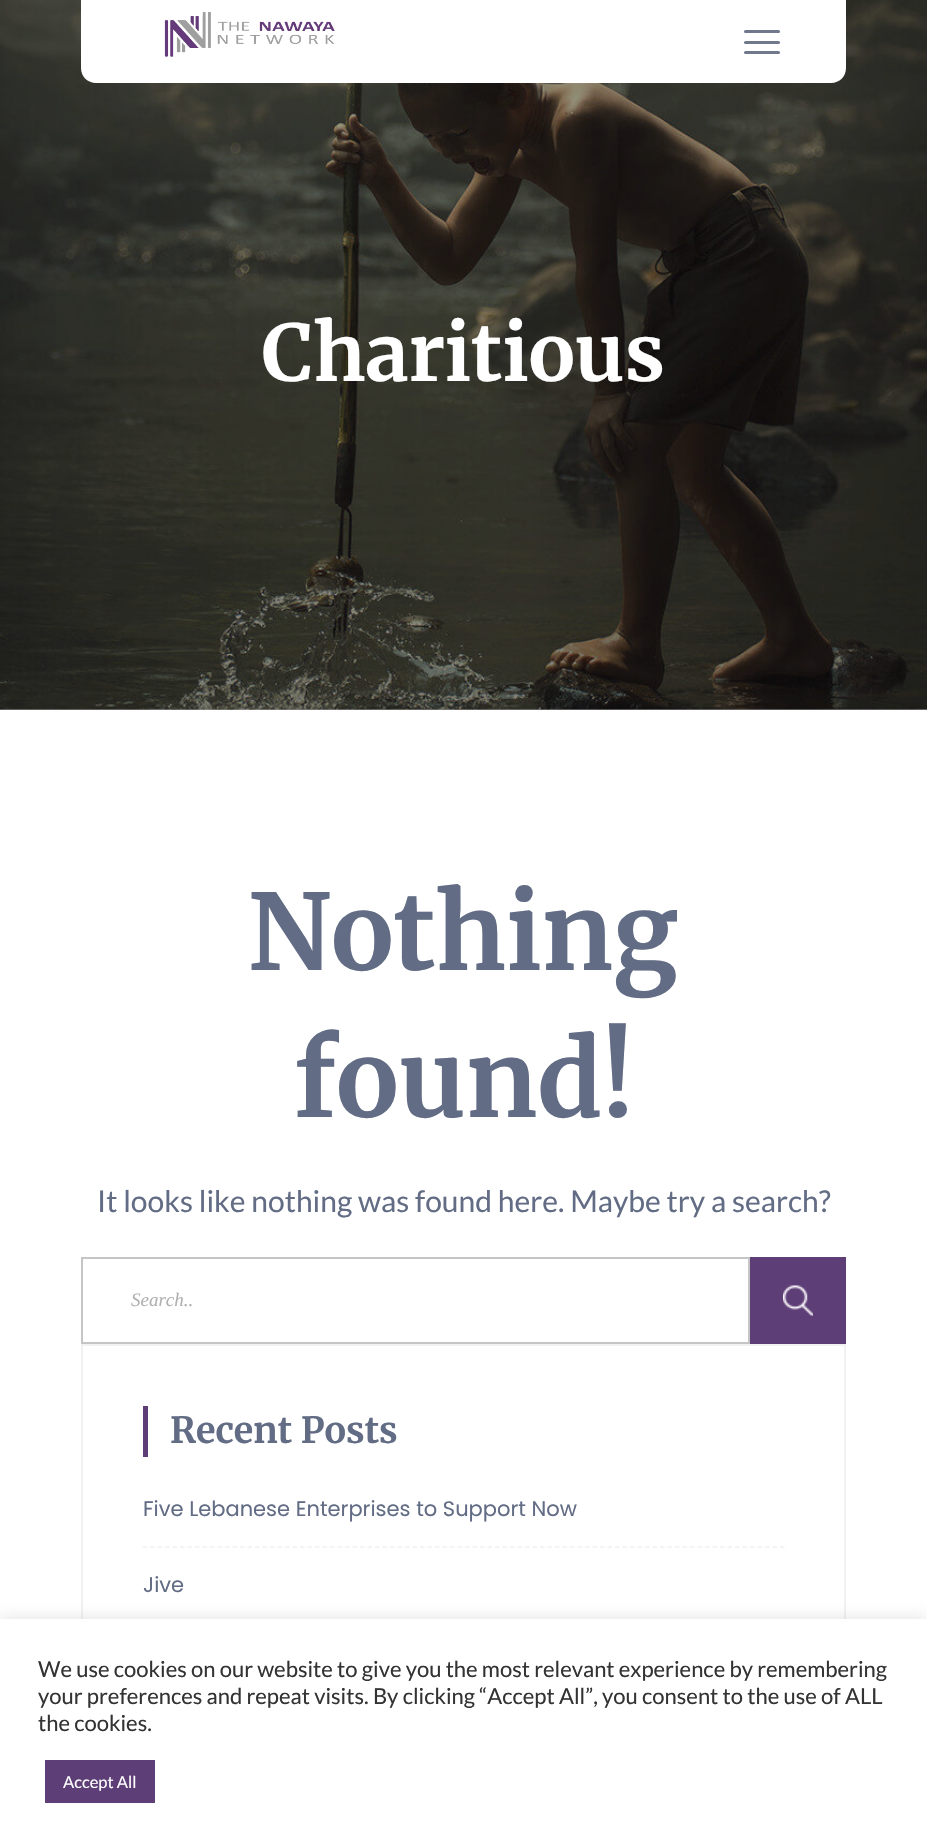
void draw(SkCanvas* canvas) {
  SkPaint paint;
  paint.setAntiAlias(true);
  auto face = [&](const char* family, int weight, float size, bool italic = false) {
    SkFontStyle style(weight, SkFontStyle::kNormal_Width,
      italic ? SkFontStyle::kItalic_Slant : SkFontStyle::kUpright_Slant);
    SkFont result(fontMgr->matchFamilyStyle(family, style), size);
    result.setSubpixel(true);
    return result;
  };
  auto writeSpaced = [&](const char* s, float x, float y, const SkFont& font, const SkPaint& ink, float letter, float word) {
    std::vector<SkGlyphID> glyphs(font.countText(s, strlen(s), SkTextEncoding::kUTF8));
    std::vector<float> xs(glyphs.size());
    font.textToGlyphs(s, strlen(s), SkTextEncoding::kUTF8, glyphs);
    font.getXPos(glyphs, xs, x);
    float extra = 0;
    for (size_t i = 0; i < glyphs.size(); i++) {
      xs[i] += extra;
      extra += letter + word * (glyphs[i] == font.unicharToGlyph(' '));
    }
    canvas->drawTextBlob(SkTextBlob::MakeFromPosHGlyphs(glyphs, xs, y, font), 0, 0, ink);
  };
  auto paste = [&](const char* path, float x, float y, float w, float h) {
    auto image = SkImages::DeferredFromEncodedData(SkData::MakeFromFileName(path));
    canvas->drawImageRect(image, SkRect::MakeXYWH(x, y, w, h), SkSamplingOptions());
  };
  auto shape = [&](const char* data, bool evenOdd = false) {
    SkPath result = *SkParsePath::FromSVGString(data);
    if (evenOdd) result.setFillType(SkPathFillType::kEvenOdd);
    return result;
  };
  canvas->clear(0xffffffff);
  paint.setColor(0xff999999);
  canvas->drawRect(SkRect::MakeXYWH(0, 709, 927, 1), paint);
  paste("img/2.png", 0, 0, 927, 710);
  paint.setColor(0xffffffff);
  canvas->drawPath(shape("M81 0H846V68C846 76.5 839.5 83 831 83H96C87.5 83 81 76.5 81 68Z"), paint);
  paste("img/1.png", 164, 11, 171, 46);
  paint.setColor(0xff70798b);
  canvas->drawRoundRect(SkRect::MakeXYWH(744, 51, 36, 3), 1.5f, 1.5f, paint);
  canvas->drawRoundRect(SkRect::MakeXYWH(744, 41, 36, 3), 1.5f, 1.5f, paint);
  canvas->drawRoundRect(SkRect::MakeXYWH(744, 30, 36, 3), 1.5f, 1.5f, paint);
  paint.setStroke(true);
  paint.setStrokeWidth(2);
  paint.setColor(0xffc5c5c5);
  canvas->drawRect(SkRect::MakeXYWH(82, 1258, 667, 85), paint);
  paint.setStroke(false);
  paint.setColor(0xff5e3e77);
  canvas->drawRect(SkRect::MakeXYWH(750, 1257, 96, 87), paint);
  paste("img/3.png", 783, 1285, 30, 31);
  paint.setStroke(true);
  paint.setColor(0xfff1f1f1);
  canvas->drawRect(SkRect::MakeXYWH(82, 1345, 763, 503), paint);
  paint.setStroke(false);
  paint.setColor(0xff5e3e77);
  canvas->drawRect(SkRect::MakeXYWH(143, 1406, 5, 51), paint);
  paint.setStroke(true);
  paint.setStrokeWidth(1.5f);
  paint.setColor(0xfff1f1f1);
  paint.setPathEffect(SkDashPathEffect::Make({{4.5f, 3}}, 0));
  canvas->drawPath(shape("M142.5 1547H784.5"), paint);
  paint.setPathEffect(nullptr);
  paint.setStroke(false);
  paint.setColor(0x4dacabab);
  paint.setMaskFilter(SkMaskFilter::MakeBlur(kNormal_SkBlurStyle, 7.5f));
  canvas->drawRect(SkRect::MakeXYWH(0, 1617, 927, 230), paint);
  paint.setMaskFilter(nullptr);
  paint.setColor(0xffffffff);
  canvas->drawRect(SkRect::MakeXYWH(0, 1619, 927, 228), paint);
  paint.setColor(0xff5e3e77);
  canvas->drawRect(SkRect::MakeXYWH(45, 1760, 110, 43), paint);
  auto f0 = face("Merriweather", 300, 78);
  paint.setColor(0xffffffff);
  writeSpaced("Charitious", 262, 381, f0, paint, -0.25f, 0);
  auto f1 = face("Merriweather", 300, 105);
  paint.setColor(0xff626c84);
  canvas->drawString("Nothing", 248, 970, f1, paint);
  canvas->drawString("found!", 294, 1117, f1, paint);
  auto f2 = face("Lato", 400, 30);
  canvas->drawString("It looks like nothing was found here. Maybe try a search?", 97, 1212, f2, paint);
  auto f3 = face("Liberation Serif", 400, 19, true);
  paint.setColor(0xffb1b1b1);
  canvas->drawString("Search..", 131, 1306, f3, paint);
  auto f4 = face("Merriweather", 300, 36);
  paint.setColor(0xff626c84);
  canvas->drawString("Recent Posts", 170, 1443, f4, paint);
  auto f5 = face("Poppins", 400, 21);
  canvas->drawString("Five Lebanese Enterprises to Support Now", 143, 1516, f5, paint);
  canvas->drawString("Jive", 143, 1592, f5, paint);
  auto f6 = face("Lato", 400, 22);
  paint.setColor(0xff333333);
  {
    const struct { const char* s; float x, y; } items[] = {
      {"We use cookies on our website to give you the most relevant experience by remembering", 38, 1677},
      {"your preferences and repeat visits. By clicking “Accept All”, you consent to the use of ALL", 38, 1704},
      {"the cookies.", 38, 1731},
    };
    for (auto [s, x, y] : items) {
      canvas->drawString(s, x, y, f6, paint);
    }
  }
  auto f7 = face("Lato", 400, 16.5f);
  paint.setColor(0xffffffff);
  canvas->drawString("Accept All", 63, 1788, f7, paint);
}
